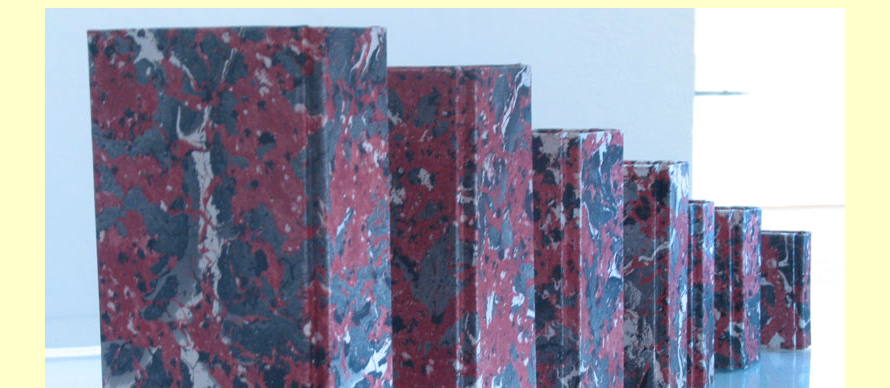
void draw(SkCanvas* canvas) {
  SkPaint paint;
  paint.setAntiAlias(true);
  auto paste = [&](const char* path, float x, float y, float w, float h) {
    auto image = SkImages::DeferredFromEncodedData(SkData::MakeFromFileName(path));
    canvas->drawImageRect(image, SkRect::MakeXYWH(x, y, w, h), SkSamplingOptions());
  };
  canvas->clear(0xffffffcc);
  paste("img/1.png", 45, 8, 800, 380);
}
